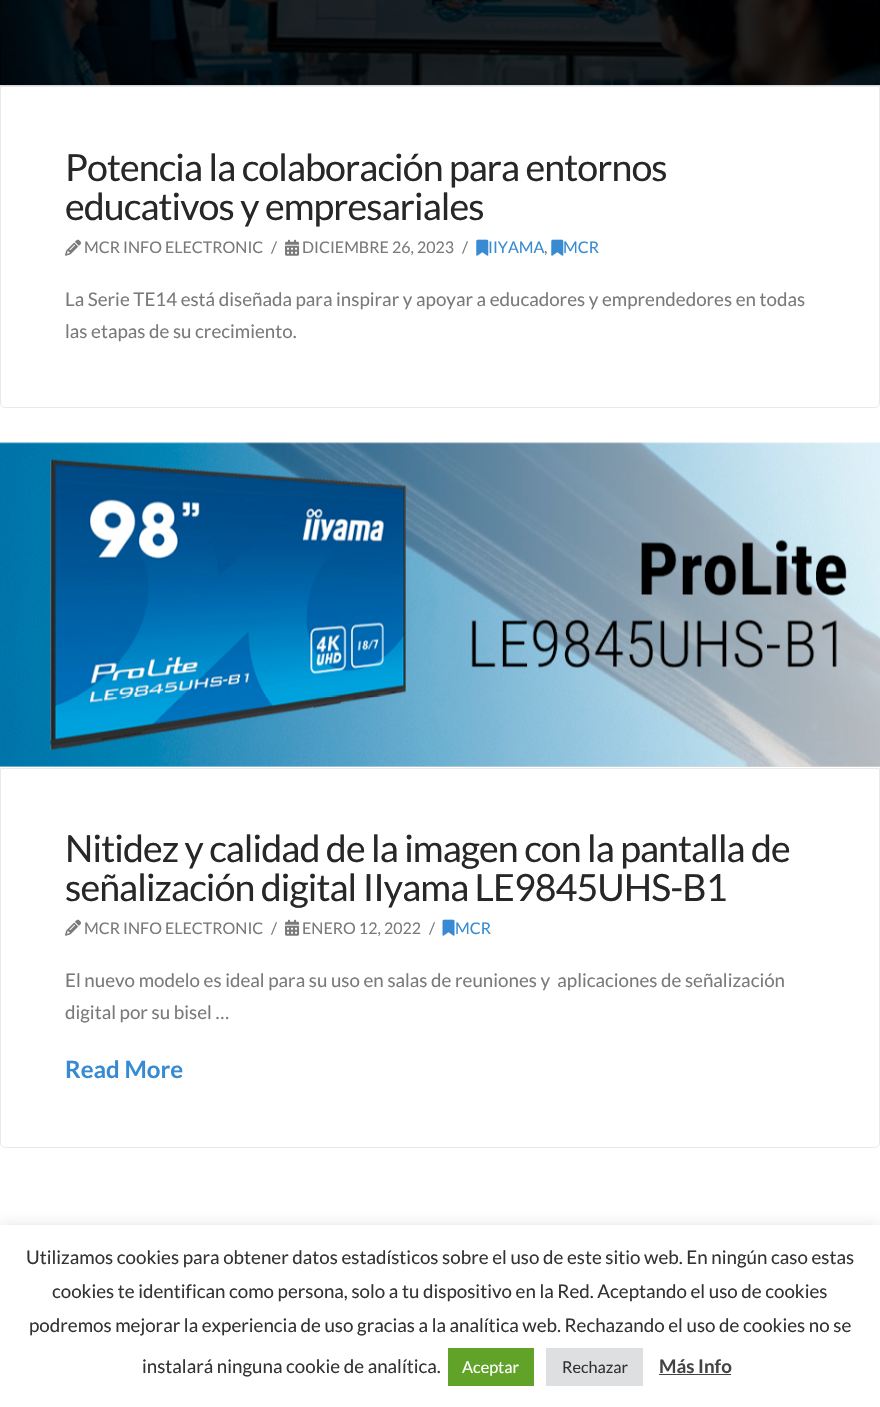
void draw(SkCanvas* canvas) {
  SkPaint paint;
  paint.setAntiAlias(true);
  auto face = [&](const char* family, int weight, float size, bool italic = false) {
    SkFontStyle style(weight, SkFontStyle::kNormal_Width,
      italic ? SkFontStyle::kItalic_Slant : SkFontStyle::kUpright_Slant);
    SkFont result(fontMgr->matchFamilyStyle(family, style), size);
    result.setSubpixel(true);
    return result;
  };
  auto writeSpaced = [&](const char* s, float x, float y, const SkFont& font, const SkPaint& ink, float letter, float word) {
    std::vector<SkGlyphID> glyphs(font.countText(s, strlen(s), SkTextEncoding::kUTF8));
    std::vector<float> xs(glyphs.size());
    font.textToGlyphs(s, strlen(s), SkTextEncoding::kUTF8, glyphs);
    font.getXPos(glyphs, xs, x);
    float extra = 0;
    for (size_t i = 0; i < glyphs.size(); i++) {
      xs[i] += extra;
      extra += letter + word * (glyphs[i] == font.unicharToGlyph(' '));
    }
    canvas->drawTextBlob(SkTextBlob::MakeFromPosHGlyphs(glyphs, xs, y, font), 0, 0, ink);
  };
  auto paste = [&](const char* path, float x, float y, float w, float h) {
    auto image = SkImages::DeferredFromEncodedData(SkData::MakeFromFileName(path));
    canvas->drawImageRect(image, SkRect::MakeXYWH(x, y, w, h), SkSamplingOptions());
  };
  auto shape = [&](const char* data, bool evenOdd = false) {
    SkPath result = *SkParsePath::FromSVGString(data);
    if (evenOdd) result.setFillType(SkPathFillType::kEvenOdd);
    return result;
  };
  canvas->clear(0xffffffff);
  paint.setColor(0xffdddddd);
  canvas->drawRect(SkRect::MakeXYWH(0, 85, 880, 1), paint);
  paint.setColor(0xff000000);
  canvas->drawRect(SkRect::MakeXYWH(0, 0, 880, 85), paint);
  paste("img/1.png", 0, 0, 880, 86);
  paint.setStroke(true);
  paint.setStrokeWidth(1);
  paint.setColor(0xffe8eaea);
  canvas->drawPath(shape("M.5 86.5H879.5V403C879.5 405.5 877.5 407.5 875 407.5H5C2.5 407.5 .5 405.5 .5 403Z"), paint);
  paste("img/2.png", 65, 239, 16, 17);
  paste("img/3.png", 285, 239, 15, 17);
  paste("img/4.png", 476, 239, 13, 17);
  paste("img/4.png", 551, 239, 13, 17);
  paint.setStroke(false);
  paint.setColor(0xffdddddd);
  canvas->drawRect(SkRect::MakeXYWH(0, 766, 880, 1), paint);
  paste("img/5.png", 0, 442, 880, 325);
  paint.setStroke(true);
  paint.setColor(0xffe8eaea);
  canvas->drawPath(shape("M.5 768.5H879.5V1143C879.5 1145.5 877.5 1147.5 875 1147.5H5C2.5 1147.5 .5 1145.5 .5 1143Z"), paint);
  paste("img/2.png", 65, 919, 16, 17);
  paste("img/3.png", 285, 919, 15, 17);
  paste("img/6.png", 442, 919, 13, 17);
  paint.setStroke(false);
  paint.setColor(0x4dacabab);
  paint.setMaskFilter(SkMaskFilter::MakeBlur(kNormal_SkBlurStyle, 6));
  canvas->drawRect(SkRect::MakeXYWH(0, 1224, 880, 182), paint);
  paint.setMaskFilter(nullptr);
  {
    const struct { float x, y, w, h; SkColor color; } items[] = {
      {0, 1225, 880, 182, 0xffffffff},
      {448, 1348, 86, 38, 0xff61a229},
      {546, 1348, 97, 38, 0xffdedfe0},
      {659, 1374, 72, 1, 0xff444444},
    };
    for (auto [x, y, w, h, color] : items) {
      paint.setColor(color);
      canvas->drawRect(SkRect::MakeXYWH(x, y, w, h), paint);
    }
  }
  auto f0 = face("Lato", 400, 37.5f);
  paint.setColor(0xff272727);
  writeSpaced("Potencia la colaboración para entornos", 65, 181, f0, paint, -0.9f, 0);
  writeSpaced("educativos y empresariales", 65, 220, f0, paint, -0.9f, 0);
  auto f1 = face("Lato", 400, 16);
  paint.setColor(0xff7a7a7a);
  {
    const struct { const char* s; float x, y; } items[] = {
      {"MCR INFO ELECTRONIC", 84, 253},
      {"/", 271, 253},
      {"DICIEMBRE 26, 2023", 302, 253},
      {"/", 462, 253},
    };
    for (auto [s, x, y] : items) {
      canvas->drawString(s, x, y, f1, paint);
    }
  }
  paint.setColor(0xff388bd2);
  canvas->drawString("IIYAMA", 488, 253, f1, paint);
  paint.setColor(0xff7a7a7a);
  canvas->drawString(",", 544, 253, f1, paint);
  paint.setColor(0xff388bd2);
  canvas->drawString("MCR", 563, 253, f1, paint);
  auto f2 = face("Lato", 400, 18.75f);
  paint.setColor(0xff7a7a7a);
  canvas->drawString("La Serie TE14 está diseñada para inspirar y apoyar a educadores y emprendedores en todas", 65, 306, f2, paint);
  canvas->drawString("las etapas de su crecimiento.", 65, 338, f2, paint);
  paint.setColor(0xff272727);
  writeSpaced("Nitidez y calidad de la imagen con la pantalla de", 65, 862, f0, paint, -0.9f, 0);
  writeSpaced("señalización digital IIyama LE9845UHS-B1", 65, 901, f0, paint, -0.9f, 0);
  paint.setColor(0xff7a7a7a);
  {
    const struct { const char* s; float x, y; } items[] = {
      {"MCR INFO ELECTRONIC", 84, 934},
      {"/", 271, 934},
      {"ENERO 12, 2022", 302, 934},
      {"/", 429, 934},
    };
    for (auto [s, x, y] : items) {
      canvas->drawString(s, x, y, f1, paint);
    }
  }
  paint.setColor(0xff388bd2);
  canvas->drawString("MCR", 455, 934, f1, paint);
  paint.setColor(0xff7a7a7a);
  canvas->drawString("El nuevo modelo es ideal para su uso en salas de reuniones y  aplicaciones de señalización", 65, 987, f2, paint);
  canvas->drawString("digital por su bisel …", 65, 1019, f2, paint);
  auto f3 = face("Lato", 700, 24);
  paint.setColor(0xff388bd2);
  canvas->drawString("Read More", 65, 1078, f3, paint);
  paint.setColor(0xff333333);
  {
    const struct { const char* s; float x, y; } items[] = {
      {"Utilizamos cookies para obtener datos estadísticos sobre el uso de este sitio web. En ningún caso estas", 26, 1264},
      {"cookies te identifican como persona, solo a tu dispositivo en la Red. Aceptando el uso de cookies", 52, 1298},
      {"podremos mejorar la experiencia de uso gracias a la analítica web. Rechazando el uso de cookies no se", 29, 1332},
      {"instalará ninguna cookie de analítica.", 142, 1373},
    };
    for (auto [s, x, y] : items) {
      canvas->drawString(s, x, y, f2, paint);
    }
  }
  auto f4 = face("Lato", 400, 16.25f);
  paint.setColor(0xffffffff);
  canvas->drawString("Aceptar", 462, 1373, f4, paint);
  paint.setColor(0xff333333);
  canvas->drawString("Rechazar", 562, 1373, f4, paint);
  auto f5 = face("Lato", 700, 18.75f);
  paint.setColor(0xff444444);
  canvas->drawString("Más Info", 659, 1373, f5, paint);
}
